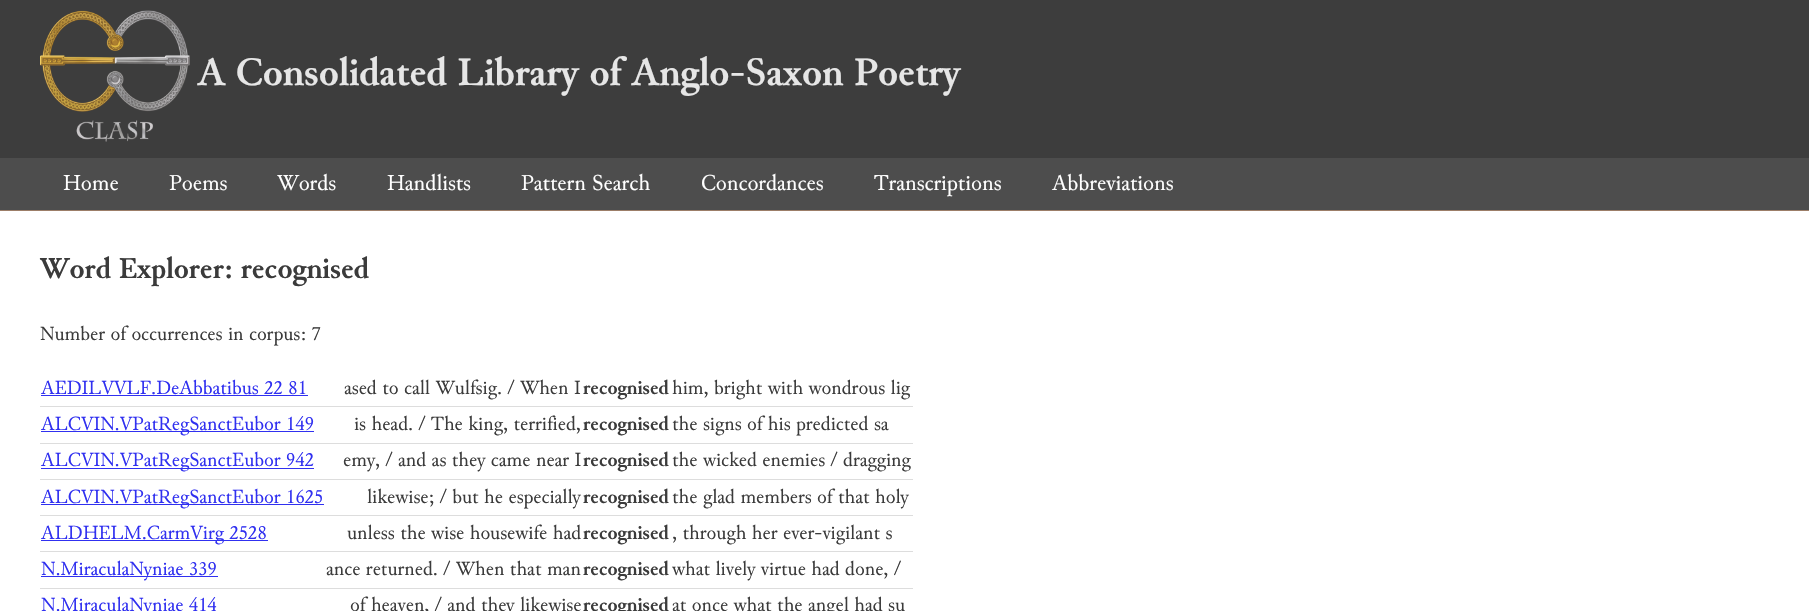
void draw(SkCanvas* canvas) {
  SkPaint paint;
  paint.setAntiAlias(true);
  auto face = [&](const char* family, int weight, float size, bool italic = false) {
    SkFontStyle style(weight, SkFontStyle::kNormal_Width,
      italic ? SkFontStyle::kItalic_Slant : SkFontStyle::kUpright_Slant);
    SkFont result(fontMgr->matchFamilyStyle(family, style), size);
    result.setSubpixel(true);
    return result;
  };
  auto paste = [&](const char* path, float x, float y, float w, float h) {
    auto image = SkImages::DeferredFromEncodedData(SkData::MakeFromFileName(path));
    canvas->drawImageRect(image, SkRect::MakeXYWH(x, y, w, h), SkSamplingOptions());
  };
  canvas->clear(0xffffffff);
  paint.setColor(0xff3d3d3d);
  canvas->drawRect(SkRect::MakeXYWH(0, 0, 1809, 158), paint);
  paste("img/1.png", 40, 10, 150, 132);
  {
    const struct { float x, y, w, h; SkColor color; } items[] = {
      {0, 158, 1809, 52, 0xff4d4d4d},
      {0, 210, 1809, 1, 0xff9c7e68},
      {41, 395, 267, 1, 0xff3030f0},
      {40, 406, 873, 1, 0xffdddddd},
      {41, 431, 273, 1, 0xff3030f0},
      {40, 443, 873, 1, 0xffdddddd},
      {41, 468, 273, 1, 0xff3030f0},
      {40, 479, 873, 1, 0xffdddddd},
      {41, 504, 283, 1, 0xff3030f0},
      {40, 515, 873, 1, 0xffdddddd},
      {41, 540, 227, 1, 0xff3030f0},
      {40, 551, 873, 1, 0xffdddddd},
      {41, 576, 177, 1, 0xff3030f0},
      {40, 588, 873, 1, 0xffdddddd},
    };
    for (auto [x, y, w, h, color] : items) {
      paint.setColor(color);
      canvas->drawRect(SkRect::MakeXYWH(x, y, w, h), paint);
    }
  }
  auto f0 = face("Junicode", 700, 40);
  paint.setColor(0xffe6e6e6);
  canvas->drawString("A Consolidated Library of Anglo-Saxon Poetry", 198, 85, f0, paint);
  auto f1 = face("Junicode", 400, 22.5f);
  paint.setColor(0xffffffff);
  {
    const struct { const char* s; float x, y; } items[] = {
      {"Home", 63, 190},
      {"Poems", 169, 190},
      {"Words", 277, 190},
      {"Handlists", 387, 190},
      {"Pattern Search", 521, 190},
      {"Concordances", 701, 190},
      {"Transcriptions", 874, 190},
      {"Abbreviations", 1052, 190},
    };
    for (auto [s, x, y] : items) {
      canvas->drawString(s, x, y, f1, paint);
    }
  }
  auto f2 = face("Junicode", 700, 30);
  paint.setColor(0xff3b3b3b);
  canvas->drawString("Word Explorer: recognised", 40, 278, f2, paint);
  auto f3 = face("Junicode", 400, 20);
  canvas->drawString("Number of occurrences in corpus: 7", 40, 340, f3, paint);
  paint.setColor(0xff3030f0);
  canvas->drawString("AEDILVVLF.DeAbbatibus 22 81", 41, 394, f3, paint);
  paint.setColor(0xff3b3b3b);
  canvas->drawString("ased to call Wulfsig. / When I", 344, 394, f3, paint);
  auto f4 = face("Junicode", 700, 20);
  canvas->drawString("recognised", 583, 394, f4, paint);
  canvas->drawString("him, bright with wondrous lig", 672, 394, f3, paint);
  paint.setColor(0xff3030f0);
  canvas->drawString("ALCVIN.VPatRegSanctEubor 149", 41, 430, f3, paint);
  paint.setColor(0xff3b3b3b);
  canvas->drawString("is head. / The king, terrified,", 354, 430, f3, paint);
  canvas->drawString("recognised", 583, 430, f4, paint);
  canvas->drawString("the signs of his predicted sa", 672, 430, f3, paint);
  paint.setColor(0xff3030f0);
  canvas->drawString("ALCVIN.VPatRegSanctEubor 942", 41, 466, f3, paint);
  paint.setColor(0xff3b3b3b);
  canvas->drawString("emy, / and as they came near I", 343, 466, f3, paint);
  canvas->drawString("recognised", 583, 466, f4, paint);
  canvas->drawString("the wicked enemies / dragging", 672, 466, f3, paint);
  paint.setColor(0xff3030f0);
  canvas->drawString("ALCVIN.VPatRegSanctEubor 1625", 41, 503, f3, paint);
  paint.setColor(0xff3b3b3b);
  canvas->drawString("likewise; / but he especially", 367, 503, f3, paint);
  canvas->drawString("recognised", 583, 503, f4, paint);
  canvas->drawString("the glad members of that holy", 672, 503, f3, paint);
  paint.setColor(0xff3030f0);
  canvas->drawString("ALDHELM.CarmVirg 2528", 41, 539, f3, paint);
  paint.setColor(0xff3b3b3b);
  canvas->drawString("unless the wise housewife had", 347, 539, f3, paint);
  canvas->drawString("recognised", 583, 539, f4, paint);
  canvas->drawString(", through her ever-vigilant s", 672, 539, f3, paint);
  paint.setColor(0xff3030f0);
  canvas->drawString("N.MiraculaNyniae 339", 41, 575, f3, paint);
  paint.setColor(0xff3b3b3b);
  canvas->drawString("ance returned. / When that man", 326, 575, f3, paint);
  canvas->drawString("recognised", 583, 575, f4, paint);
  canvas->drawString("what lively virtue had done, /", 672, 575, f3, paint);
  paint.setColor(0xff3030f0);
  canvas->drawString("N.MiraculaNyniae 414", 41, 611, f3, paint);
  paint.setColor(0xff3b3b3b);
  canvas->drawString("of heaven, / and they likewise", 350, 611, f3, paint);
  canvas->drawString("recognised", 583, 611, f4, paint);
  canvas->drawString("at once what the angel had su", 672, 611, f3, paint);
}
